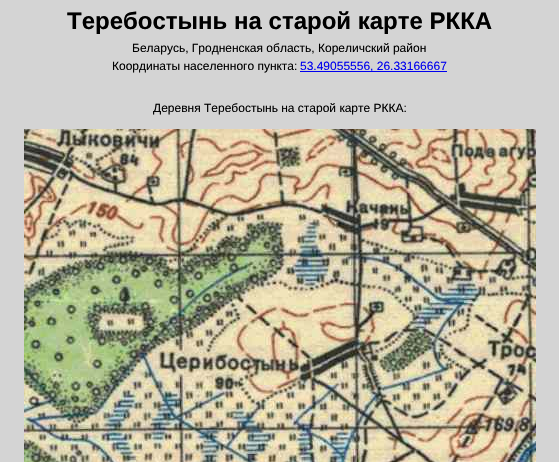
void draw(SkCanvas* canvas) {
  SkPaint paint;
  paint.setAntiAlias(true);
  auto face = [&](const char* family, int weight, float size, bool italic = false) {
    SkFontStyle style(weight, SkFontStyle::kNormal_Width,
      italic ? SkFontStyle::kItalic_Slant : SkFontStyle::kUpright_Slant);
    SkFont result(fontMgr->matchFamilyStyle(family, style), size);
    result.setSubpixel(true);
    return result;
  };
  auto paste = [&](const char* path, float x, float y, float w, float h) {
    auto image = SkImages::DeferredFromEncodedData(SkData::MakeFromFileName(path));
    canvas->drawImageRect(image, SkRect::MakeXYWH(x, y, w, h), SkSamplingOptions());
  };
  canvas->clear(0xffd4d4d4);
  paint.setColor(0xff0000ee);
  canvas->drawRect(SkRect::MakeXYWH(300, 71, 147, 1), paint);
  paste("img/1.png", 24, 129, 256, 256);
  paste("img/2.png", 280, 129, 256, 256);
  paste("img/3.png", 24, 385, 256, 77);
  paste("img/4.png", 280, 385, 256, 77);
  auto f0 = face("Liberation Sans", 700, 24);
  paint.setColor(0xff000000);
  canvas->drawString("Теребостынь на старой карте РККА", 67, 29, f0, paint);
  auto f1 = face("Liberation Sans", 400, 12);
  canvas->drawString("Беларусь, Гродненская область, Кореличский район", 132, 52, f1, paint);
  canvas->drawString("Координаты населенного пункта:", 112, 70, f1, paint);
  paint.setColor(0xff0000ee);
  canvas->drawString("53.49055556, 26.33166667", 300, 70, f1, paint);
  paint.setColor(0xff000000);
  canvas->drawString("Деревня Теребостынь на старой карте РККА:", 153, 112, f1, paint);
}
